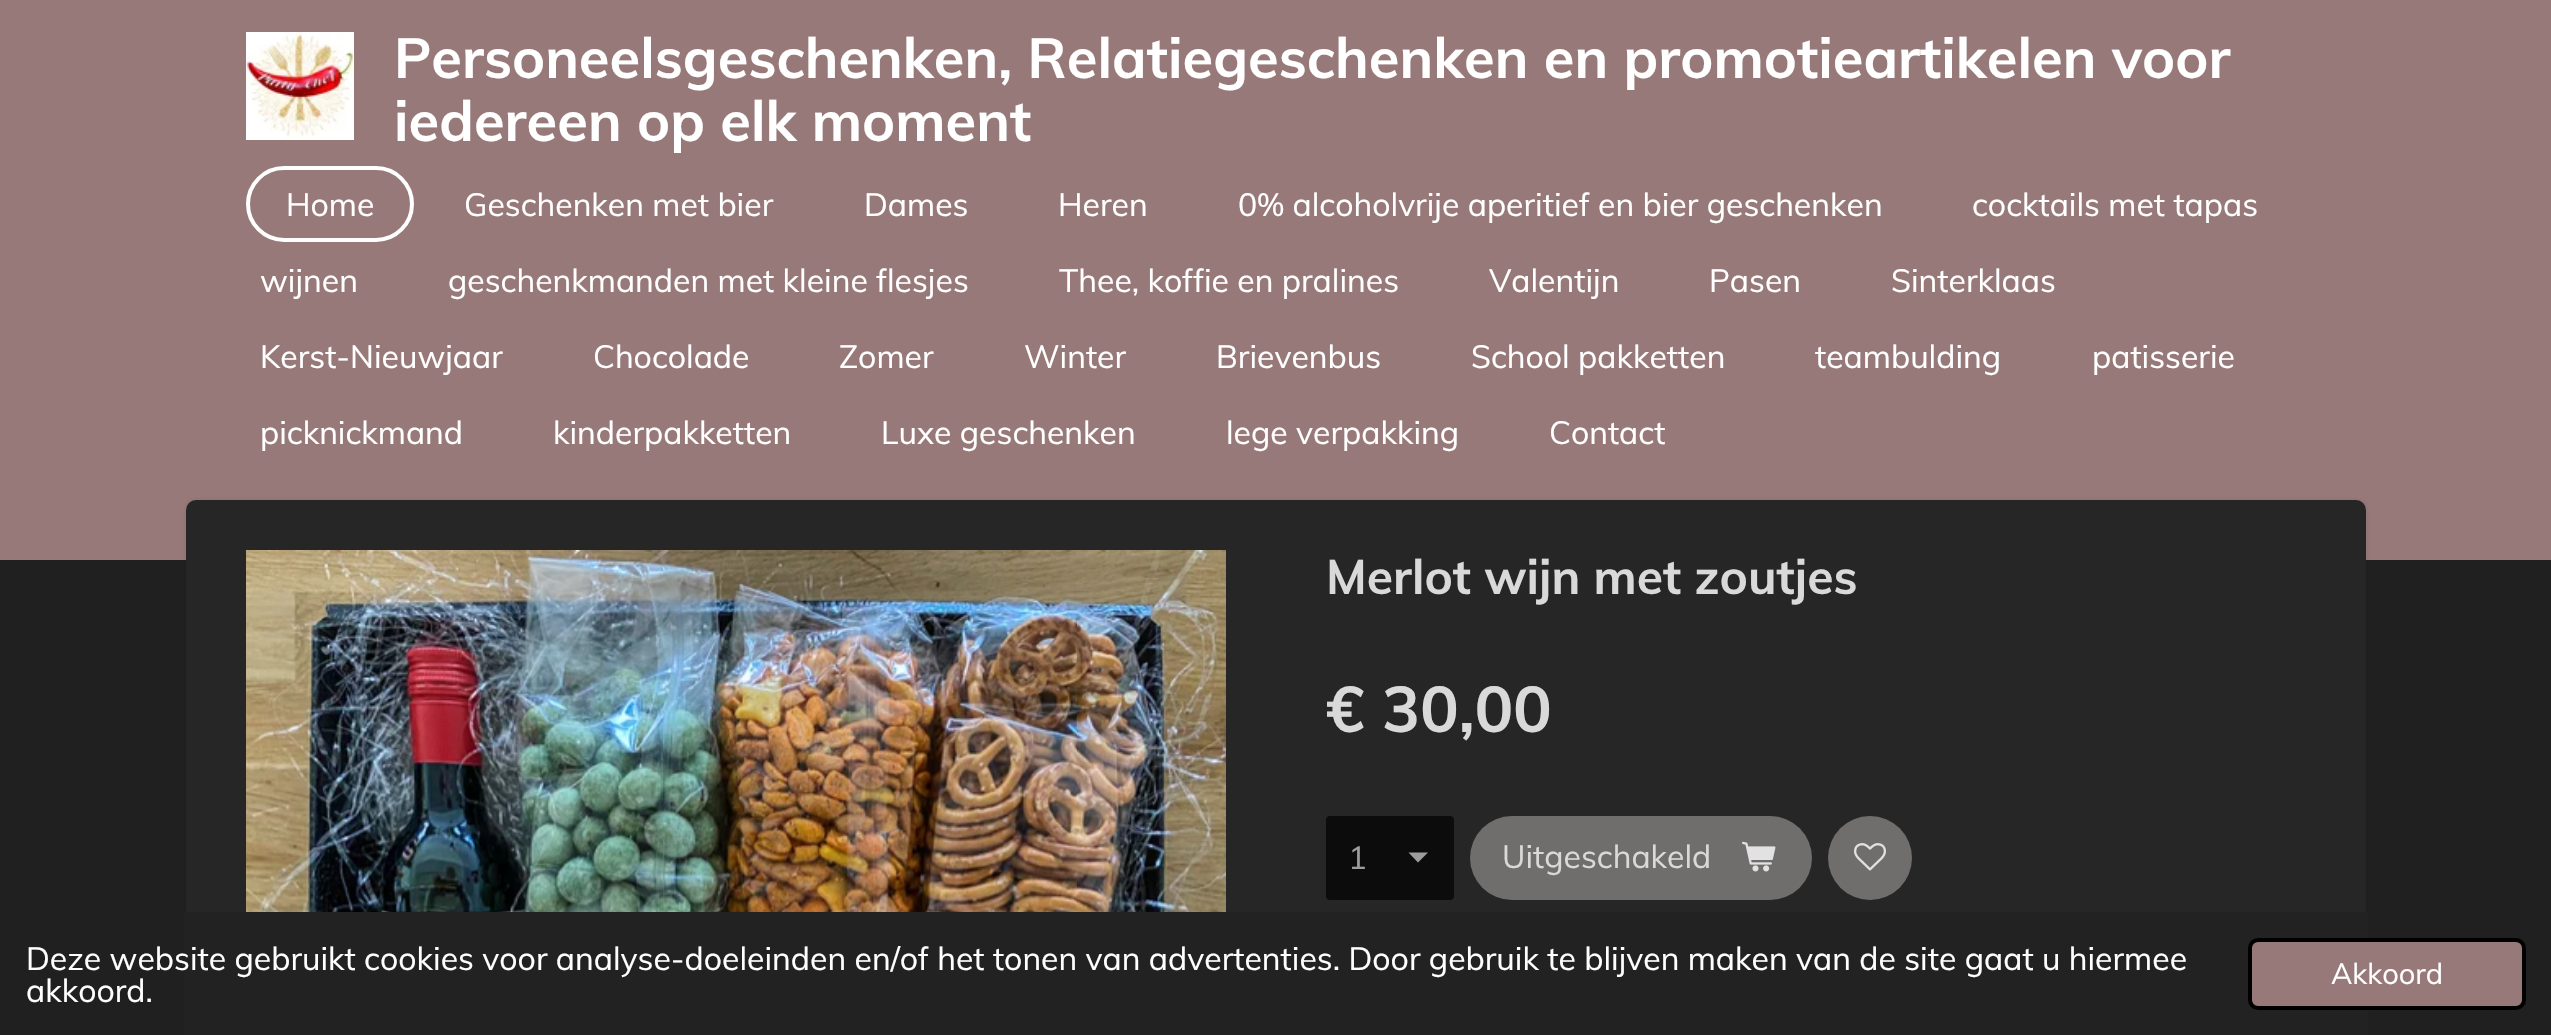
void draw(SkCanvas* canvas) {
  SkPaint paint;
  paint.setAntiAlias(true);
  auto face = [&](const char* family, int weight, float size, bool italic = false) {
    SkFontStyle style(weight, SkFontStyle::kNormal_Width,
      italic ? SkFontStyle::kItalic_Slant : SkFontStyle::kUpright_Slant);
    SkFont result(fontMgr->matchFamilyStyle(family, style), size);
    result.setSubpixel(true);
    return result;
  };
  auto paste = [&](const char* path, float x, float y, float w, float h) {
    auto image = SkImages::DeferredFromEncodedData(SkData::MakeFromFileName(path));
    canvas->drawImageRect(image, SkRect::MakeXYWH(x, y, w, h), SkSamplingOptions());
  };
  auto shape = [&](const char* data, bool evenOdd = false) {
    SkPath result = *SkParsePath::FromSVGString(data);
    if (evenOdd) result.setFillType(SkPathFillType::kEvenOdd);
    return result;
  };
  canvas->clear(0xff202020);
  paint.setColor(0xff987979);
  canvas->drawRect(SkRect::MakeXYWH(0, 0, 2551, 560), paint);
  paste("img/1.png", 246, 32, 108, 108);
  paint.setStroke(true);
  paint.setStrokeWidth(4);
  paint.setColor(0xffffffff);
  canvas->drawRoundRect(SkRect::MakeXYWH(248, 168, 164, 72), 36, 36, paint);
  paint.setStroke(false);
  paint.setColor(0x1a000000);
  paint.setMaskFilter(SkMaskFilter::MakeBlur(kNormal_SkBlurStyle, 2));
  canvas->drawRoundRect(SkRect::MakeXYWH(186, 500, 2180, 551), 10, 10, paint);
  paint.setMaskFilter(nullptr);
  paint.setColor(0xff262626);
  canvas->drawRoundRect(SkRect::MakeXYWH(186, 500, 2180, 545), 10, 10, paint);
  paste("img/2.png", 246, 550, 980, 362);
  paint.setColor(0xff0c0c0c);
  canvas->drawRoundRect(SkRect::MakeXYWH(1326, 816, 128, 84), 4, 4, paint);
  paint.setColor(0xff9d9d9d);
  canvas->drawPath(shape("M1418 862.5L1408.5 852.5H1428Z"), paint);
  paint.setColor(0xff706d6d);
  canvas->drawRoundRect(SkRect::MakeXYWH(1470, 816, 342, 84), 42, 42, paint);
  paste("img/3.png", 1742, 841, 34, 31);
  canvas->drawCircle(1870, 858, 42, paint);
  paste("img/4.png", 1854, 843, 32, 28);
  paint.setColor(0xff222222);
  canvas->drawRect(SkRect::MakeXYWH(184, 912, 2184, 123), paint);
  paint.setColor(0xff987979);
  canvas->drawRoundRect(SkRect::MakeXYWH(2250, 940, 274, 68), 8, 8, paint);
  paint.setStroke(true);
  paint.setColor(0xff000000);
  canvas->drawRoundRect(SkRect::MakeXYWH(2250, 940, 274, 68), 8, 8, paint);
  auto f0 = face("Muli", 700, 56);
  paint.setStroke(false);
  paint.setColor(0xffffffff);
  canvas->drawString("Personeelsgeschenken, Relatiegeschenken en promotieartikelen voor", 394, 78, f0, paint);
  canvas->drawString("iedereen op elk moment", 394, 141, f0, paint);
  auto f1 = face("Muli", 400, 32);
  {
    const struct { const char* s; float x, y; } items[] = {
      {"Home", 286, 216},
      {"Geschenken met bier", 464, 216},
      {"Dames", 864, 216},
      {"Heren", 1058, 216},
      {"0% alcoholvrije aperitief en bier geschenken", 1238, 216},
      {"cocktails met tapas", 1972, 216},
      {"wijnen", 260, 292},
      {"geschenkmanden met kleine flesjes", 448, 292},
      {"Thee, koffie en pralines", 1059, 292},
      {"Valentijn", 1489, 292},
      {"Pasen", 1709, 292},
      {"Sinterklaas", 1891, 292},
      {"Kerst-Nieuwjaar", 260, 368},
      {"Chocolade", 593, 368},
      {"Zomer", 839, 368},
      {"Winter", 1024, 368},
      {"Brievenbus", 1216, 368},
      {"School pakketten", 1471, 368},
      {"teambulding", 1815, 368},
      {"patisserie", 2092, 368},
      {"picknickmand", 260, 444},
      {"kinderpakketten", 553, 444},
      {"Luxe geschenken", 881, 444},
      {"lege verpakking", 1226, 444},
      {"Contact", 1549, 444},
    };
    for (auto [s, x, y] : items) {
      canvas->drawString(s, x, y, f1, paint);
    }
  }
  auto f2 = face("Muli", 700, 48);
  paint.setColor(0xffd9d9d9);
  canvas->drawString("Merlot wijn met zoutjes", 1326, 594, f2, paint);
  auto f3 = face("Muli", 700, 64);
  canvas->drawString("€ 30,00", 1326, 732, f3, paint);
  paint.setColor(0xff9d9d9d);
  canvas->drawString("1", 1348, 869, f1, paint);
  paint.setColor(0xffd9d9d9);
  canvas->drawString("Uitgeschakeld", 1502, 868, f1, paint);
  paint.setColor(0xffffffff);
  canvas->drawString("Deze website gebruikt cookies voor analyse-doeleinden en/of het tonen van advertenties. Door gebruik te blijven maken van de site gaat u hiermee", 26, 970, f1, paint);
  canvas->drawString("akkoord.", 26, 1002, f1, paint);
  auto f4 = face("Muli", 400, 29);
  canvas->drawString("Akkoord", 2331, 984, f4, paint);
}
